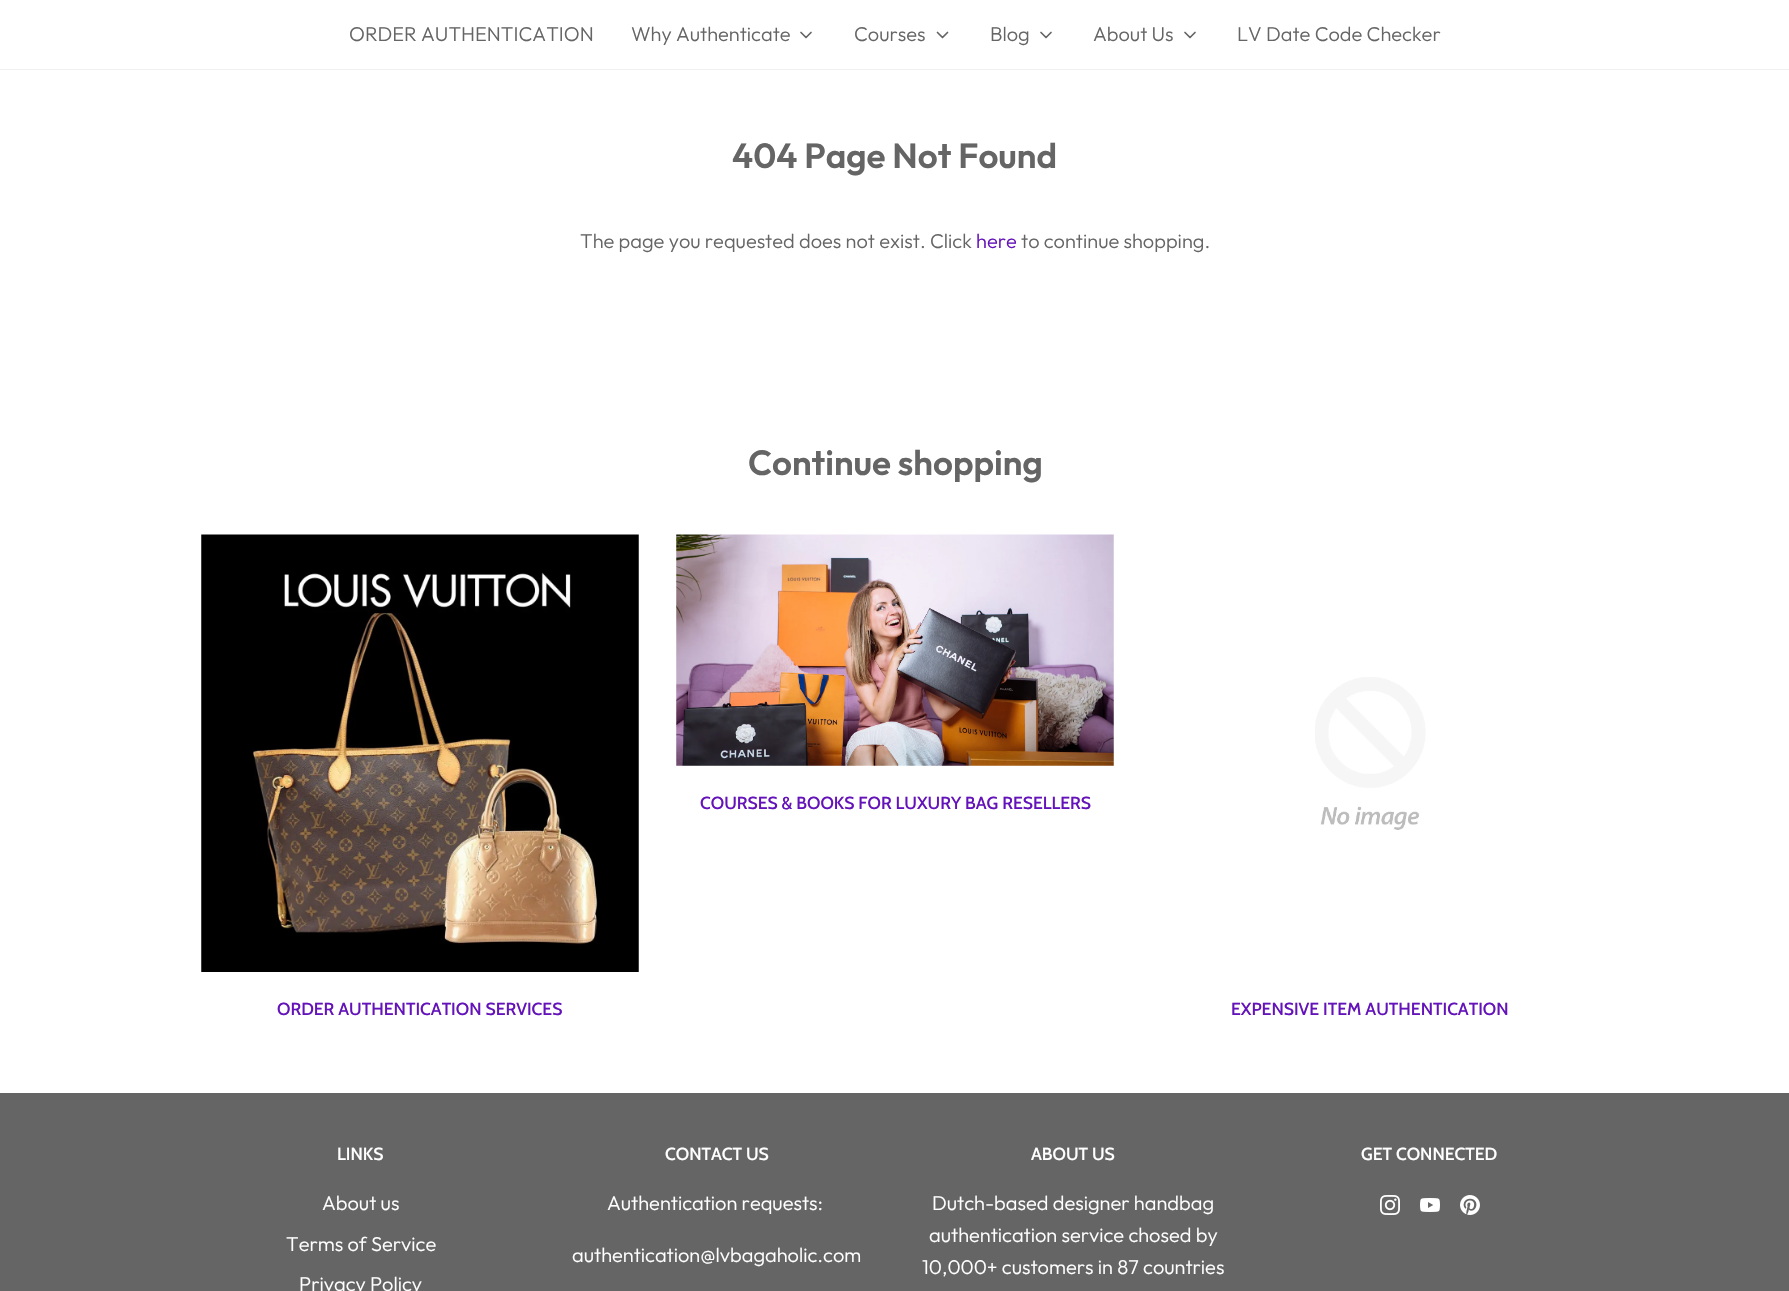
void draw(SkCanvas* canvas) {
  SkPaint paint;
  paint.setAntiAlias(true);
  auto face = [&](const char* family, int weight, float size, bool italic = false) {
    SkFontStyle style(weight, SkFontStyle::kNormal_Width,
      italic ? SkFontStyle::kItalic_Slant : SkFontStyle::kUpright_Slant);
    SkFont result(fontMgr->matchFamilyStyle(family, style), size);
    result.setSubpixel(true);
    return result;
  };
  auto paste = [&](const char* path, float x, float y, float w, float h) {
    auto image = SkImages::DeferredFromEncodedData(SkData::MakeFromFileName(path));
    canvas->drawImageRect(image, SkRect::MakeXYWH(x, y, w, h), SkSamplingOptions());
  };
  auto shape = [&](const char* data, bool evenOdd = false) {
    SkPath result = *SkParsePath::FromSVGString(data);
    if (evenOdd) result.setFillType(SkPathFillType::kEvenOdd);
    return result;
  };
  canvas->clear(0xffffffff);
  paint.setColor(0xfff0f0f0);
  canvas->drawRect(SkRect::MakeXYWH(0, 69, 1789, 1), paint);
  paint.setStroke(true);
  paint.setStrokeWidth(1.7f);
  paint.setStrokeCap(SkPaint::kRound_Cap);
  paint.setStrokeJoin(SkPaint::kRound_Join);
  paint.setColor(0xff656565);
  canvas->drawPath(shape("M801 32.5L806 37.5L811 32.5"), paint);
  canvas->drawPath(shape("M937.5 32.5L942.5 37.5L947.5 32.5"), paint);
  canvas->drawPath(shape("M1041 32.5L1046 37.5L1051 32.5"), paint);
  canvas->drawPath(shape("M1185 32.5L1190 37.5L1195 32.5"), paint);
  paste("img/1.png", 676, 534, 438, 232);
  paste("img/2.png", 201, 534, 438, 438);
  paste("img/3.png", 1315, 677, 111, 153);
  paint.setStroke(false);
  canvas->drawRect(SkRect::MakeXYWH(0, 1093, 1789, 198), paint);
  paste("img/4.png", 1380, 1195, 20, 20);
  paste("img/5.png", 1420, 1198, 20, 14);
  paste("img/6.png", 1460, 1195, 20, 20);
  auto f0 = face("Outfit", 300, 20);
  {
    const struct { const char* s; float x, y; } items[] = {
      {"ORDER AUTHENTICATION", 349, 41},
      {"Why Authenticate", 631, 41},
      {"Courses", 854, 41},
      {"Blog", 990, 41},
      {"About Us", 1093, 41},
      {"LV Date Code Checker", 1237, 41},
    };
    for (auto [s, x, y] : items) {
      canvas->drawString(s, x, y, f0, paint);
    }
  }
  auto f1 = face("Outfit", 600, 35);
  canvas->drawString("404 Page Not Found", 732, 168, f1, paint);
  canvas->drawString("The page you requested does not exist. Click", 580, 248, f0, paint);
  paint.setColor(0xff6413ba);
  canvas->drawString("here", 976, 248, f0, paint);
  paint.setColor(0xff656565);
  canvas->drawString("to continue shopping.", 1021, 248, f0, paint);
  canvas->drawString("Continue shopping", 748, 475, f1, paint);
  auto f2 = face("Cabin", 500, 17.5f);
  paint.setColor(0xff6413ba);
  {
    const struct { const char* s; float x, y; } items[] = {
      {"COURSES & BOOKS FOR LUXURY BAG RESELLERS", 700, 809},
      {"ORDER AUTHENTICATION SERVICES", 277, 1015},
      {"EXPENSIVE ITEM AUTHENTICATION", 1231, 1015},
    };
    for (auto [s, x, y] : items) {
      canvas->drawString(s, x, y, f2, paint);
    }
  }
  paint.setColor(0xffffffff);
  canvas->drawString("LINKS", 337, 1160, f2, paint);
  {
    const struct { const char* s; float x, y; } items[] = {
      {"About us", 322, 1210},
      {"Terms of Service", 286, 1251},
      {"Privacy Policy", 299, 1291},
    };
    for (auto [s, x, y] : items) {
      canvas->drawString(s, x, y, f0, paint);
    }
  }
  canvas->drawString("CONTACT US", 665, 1160, f2, paint);
  canvas->drawString("Authentication requests:", 607, 1210, f0, paint);
  canvas->drawString("authentication@lvbagaholic.com", 572, 1262, f0, paint);
  canvas->drawString("ABOUT US", 1031, 1160, f2, paint);
  {
    const struct { const char* s; float x, y; } items[] = {
      {"Dutch-based designer handbag", 932, 1210},
      {"authentication service chosed by", 929, 1242},
      {"10,000+ customers in 87 countries", 922, 1274},
    };
    for (auto [s, x, y] : items) {
      canvas->drawString(s, x, y, f0, paint);
    }
  }
  canvas->drawString("GET CONNECTED", 1361, 1160, f2, paint);
}
